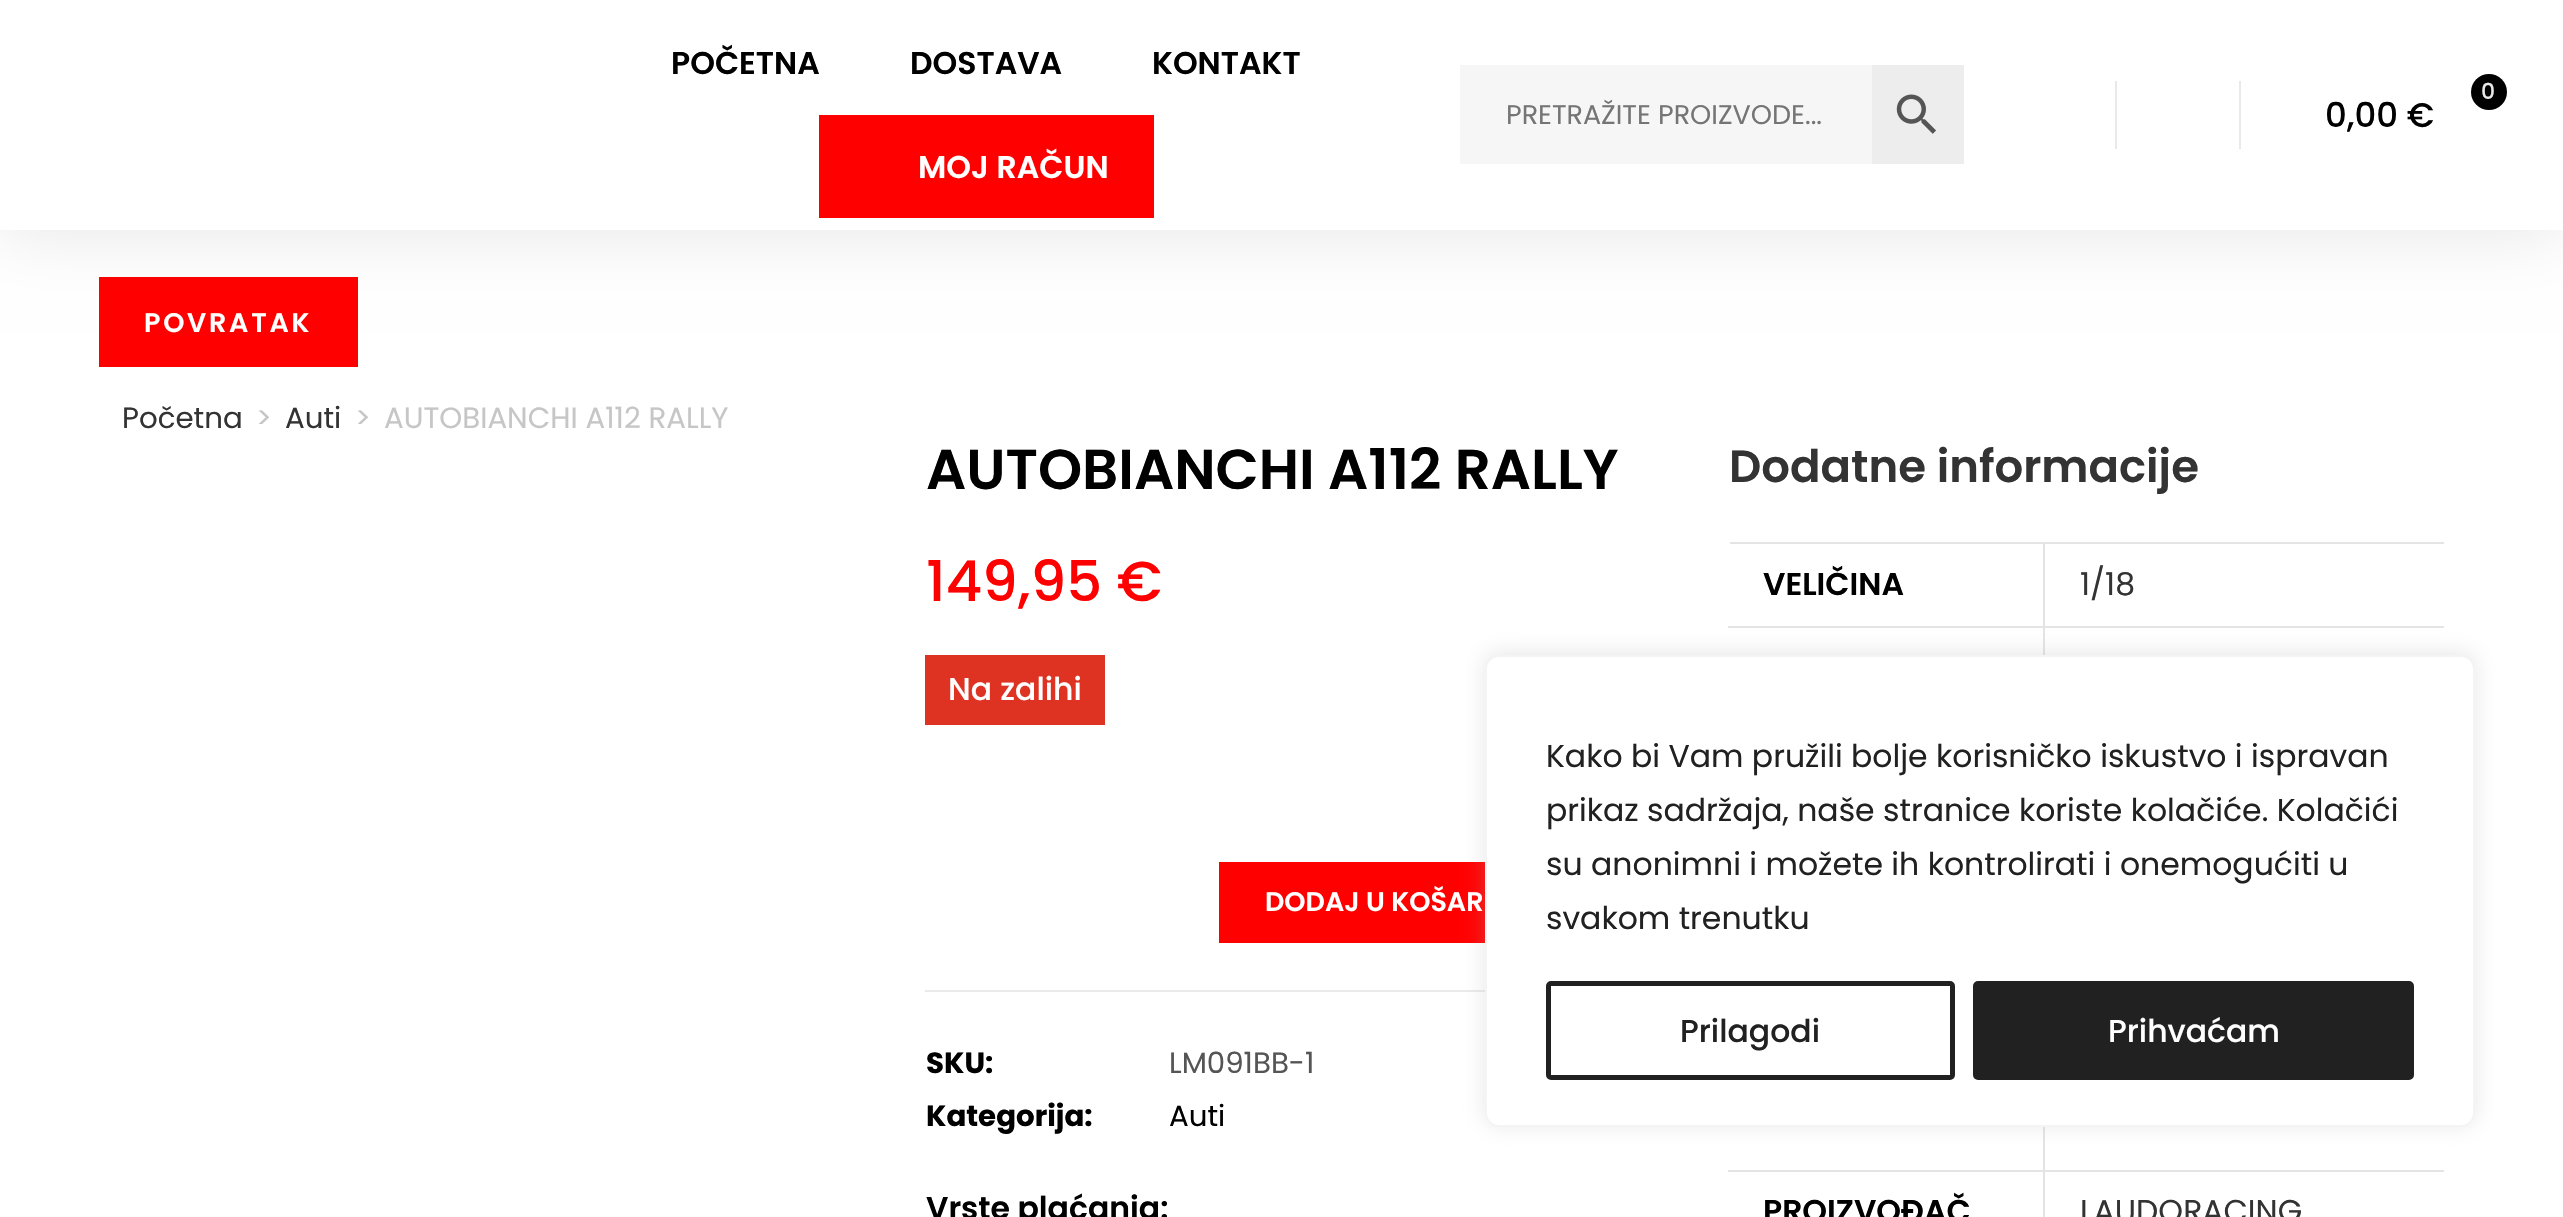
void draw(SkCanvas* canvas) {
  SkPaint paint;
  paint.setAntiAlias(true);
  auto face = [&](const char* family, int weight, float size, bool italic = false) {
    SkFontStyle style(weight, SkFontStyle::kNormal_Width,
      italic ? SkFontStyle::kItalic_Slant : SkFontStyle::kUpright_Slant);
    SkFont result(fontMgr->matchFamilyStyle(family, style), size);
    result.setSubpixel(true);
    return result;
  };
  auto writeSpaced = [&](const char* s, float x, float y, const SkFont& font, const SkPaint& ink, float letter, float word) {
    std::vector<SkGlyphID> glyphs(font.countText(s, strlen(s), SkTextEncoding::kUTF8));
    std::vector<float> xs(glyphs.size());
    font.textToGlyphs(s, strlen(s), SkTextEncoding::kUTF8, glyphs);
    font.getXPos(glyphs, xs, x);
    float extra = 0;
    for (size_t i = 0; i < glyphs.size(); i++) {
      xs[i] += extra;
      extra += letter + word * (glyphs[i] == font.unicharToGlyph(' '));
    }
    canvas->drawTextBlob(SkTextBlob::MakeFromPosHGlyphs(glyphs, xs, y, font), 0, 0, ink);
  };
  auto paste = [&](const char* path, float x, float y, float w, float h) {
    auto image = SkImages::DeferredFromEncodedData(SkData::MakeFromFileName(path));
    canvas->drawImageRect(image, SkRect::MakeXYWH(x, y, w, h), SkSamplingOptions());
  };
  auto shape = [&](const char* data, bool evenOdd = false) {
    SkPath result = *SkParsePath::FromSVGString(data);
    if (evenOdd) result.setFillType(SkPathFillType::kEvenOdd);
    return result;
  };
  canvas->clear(0xffffffff);
  paint.setColor(0xffff0000);
  canvas->drawRect(SkRect::MakeXYWH(99, 277, 259, 90), paint);
  canvas->save();
  canvas->clipPath(shape("M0 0H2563V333H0ZM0 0H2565V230H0Z", true), true);
  paint.setColor(0x1a000000);
  paint.setMaskFilter(SkMaskFilter::MakeBlur(kNormal_SkBlurStyle, 34));
  canvas->drawRect(SkRect::MakeXYWH(0, 0, 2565, 230), paint);
  paint.setMaskFilter(nullptr);
  canvas->restore();
  {
    const struct { float x, y, w, h; SkColor color; } items[] = {
      {819, 115, 335, 103, 0xffff0000},
      {1460, 65, 412, 99, 0xfff6f6f6},
      {1872, 65, 92, 99, 0xffededed},
    };
    for (auto [x, y, w, h, color] : items) {
      paint.setColor(color);
      canvas->drawRect(SkRect::MakeXYWH(x, y, w, h), paint);
    }
  }
  paste("img/1.png", 1896, 94, 40, 40);
  paint.setColor(0xffe9e9e9);
  canvas->drawRect(SkRect::MakeXYWH(2115, 81, 2, 68), paint);
  canvas->drawRect(SkRect::MakeXYWH(2239, 81, 2, 68), paint);
  paint.setColor(0xff000000);
  canvas->drawCircle(2489, 92, 18, paint);
  {
    const struct { float x, y, w, h; SkColor color; } items[] = {
      {925, 655, 180, 70, 0xffde3323},
      {925, 990, 560, 2, 0xffeaeaea},
      {1219, 862, 266, 81, 0xffff0000},
      {1730, 542, 714, 2, 0xffe4e4e4},
      {2043, 626, 2, 29, 0xffe4e4e4},
      {2043, 626, 401, 2, 0xffe4e4e4},
      {2043, 542, 2, 86, 0xffe4e4e4},
      {1728, 626, 317, 2, 0xffe4e4e4},
      {2043, 1170, 2, 47, 0xffe4e4e4},
      {2043, 1170, 401, 2, 0xffe4e4e4},
      {2043, 1127, 2, 45, 0xffe4e4e4},
      {1728, 1170, 317, 2, 0xffe4e4e4},
    };
    for (auto [x, y, w, h, color] : items) {
      paint.setColor(color);
      canvas->drawRect(SkRect::MakeXYWH(x, y, w, h), paint);
    }
  }
  paint.setColor(0x4dacabab);
  paint.setMaskFilter(SkMaskFilter::MakeBlur(kNormal_SkBlurStyle, 11));
  canvas->drawRoundRect(SkRect::MakeXYWH(1485, 653, 990, 472), 14, 14, paint);
  paint.setMaskFilter(nullptr);
  paint.setColor(0xffffffff);
  canvas->drawRoundRect(SkRect::MakeXYWH(1486, 656, 988, 470), 13, 13, paint);
  paint.setStroke(true);
  paint.setStrokeWidth(2);
  paint.setColor(0xfff4f4f4);
  canvas->drawRoundRect(SkRect::MakeXYWH(1486, 656, 988, 470), 13, 13, paint);
  paint.setStrokeWidth(5);
  paint.setColor(0xff212121);
  canvas->drawRoundRect(SkRect::MakeXYWH(1548.5f, 983.5f, 404, 94), 2.5f, 2.5f, paint);
  paint.setStroke(false);
  canvas->drawRoundRect(SkRect::MakeXYWH(1975.5f, 983.5f, 436, 94), 2.5f, 2.5f, paint);
  paint.setStroke(true);
  canvas->drawRoundRect(SkRect::MakeXYWH(1975.5f, 983.5f, 436, 94), 2.5f, 2.5f, paint);
  auto f0 = face("Poppins", 600, 31.5f);
  paint.setStroke(false);
  paint.setColor(0xff000000);
  {
    const struct { const char* s; float x, y; } items[] = {
      {"POČETNA", 671, 74},
      {"DOSTAVA", 910, 74},
      {"KONTAKT", 1152, 74},
    };
    for (auto [s, x, y] : items) {
      canvas->drawString(s, x, y, f0, paint);
    }
  }
  paint.setColor(0xffffffff);
  canvas->drawString("MOJ RAČUN", 918, 178, f0, paint);
  auto f1 = face("Poppins", 400, 27);
  paint.setColor(0xff757575);
  canvas->drawString("PRETRAŽITE PROIZVODE...", 1506, 124, f1, paint);
  auto f2 = face("Poppins", 500, 22);
  paint.setColor(0xffe9e9e9);
  canvas->drawString("0", 2481, 99, f2, paint);
  auto f3 = face("Poppins", 500, 34);
  paint.setColor(0xff000000);
  canvas->drawString("0,00 €", 2325, 127, f3, paint);
  auto f4 = face("Poppins", 600, 27);
  paint.setColor(0xffffffff);
  writeSpaced("POVRATAK", 144, 332, f4, paint, 2.75f, 0);
  auto f5 = face("Poppins", 400, 29.25f);
  paint.setColor(0xff333333);
  canvas->drawString("Početna", 122, 428, f5, paint);
  paint.setColor(0xffc6c6c6);
  canvas->drawString(">", 256, 428, f5, paint);
  paint.setColor(0xff333333);
  canvas->drawString("Auti", 285, 428, f5, paint);
  paint.setColor(0xffc6c6c6);
  canvas->drawString(">", 355, 428, f5, paint);
  canvas->drawString("AUTOBIANCHI A112 RALLY", 384, 428, f5, paint);
  auto f6 = face("Poppins", 600, 56.25f);
  paint.setColor(0xff000000);
  canvas->drawString("AUTOBIANCHI A112 RALLY", 926, 489, f6, paint);
  auto f7 = face("Poppins", 500, 56.25f);
  paint.setColor(0xffff0000);
  canvas->drawString("149,95 €", 926, 601, f7, paint);
  auto f8 = face("Poppins", 500, 31.5f);
  paint.setColor(0xffffffff);
  canvas->drawString("Na zalihi", 948, 700, f8, paint);
  canvas->drawString("DODAJ U KOŠAR", 1265, 911, f4, paint);
  auto f9 = face("Poppins", 700, 29.25f);
  paint.setColor(0xff000000);
  canvas->drawString("SKU:", 926, 1073, f9, paint);
  paint.setColor(0xff555555);
  canvas->drawString("LM091BB-1", 1169, 1073, f5, paint);
  paint.setColor(0xff000000);
  canvas->drawString("Kategorija:", 926, 1126, f9, paint);
  canvas->drawString("Auti", 1169, 1126, f5, paint);
  canvas->drawString("Vrste plaćanja:", 926, 1219, f0, paint);
  auto f10 = face("Poppins", 600, 45);
  paint.setColor(0xff333333);
  canvas->drawString("Dodatne informacije", 1729, 482, f10, paint);
  paint.setColor(0xff000000);
  canvas->drawString("VELIČINA", 1763, 595, f0, paint);
  auto f11 = face("Poppins", 400, 31.5f);
  paint.setColor(0xff333333);
  canvas->drawString("1/18", 2080, 595, f11, paint);
  paint.setColor(0xff000000);
  canvas->drawString("PROIZVOĐAČ", 1763, 1222, f0, paint);
  paint.setColor(0xff333333);
  canvas->drawString("LAUDORACING", 2080, 1222, f11, paint);
  paint.setColor(0xff212121);
  {
    const struct { const char* s; float x, y; } items[] = {
      {"Kako bi Vam pružili bolje korisničko iskustvo i ispravan", 1546, 767},
      {"prikaz sadržaja, naše stranice koriste kolačiće. Kolačići", 1546, 821},
      {"su anonimni i možete ih kontrolirati i onemogućiti u", 1546, 875},
      {"svakom trenutku", 1546, 929},
    };
    for (auto [s, x, y] : items) {
      canvas->drawString(s, x, y, f11, paint);
    }
  }
  canvas->drawString("Prilagodi", 1680, 1042, f8, paint);
  paint.setColor(0xffffffff);
  canvas->drawString("Prihvaćam", 2108, 1042, f8, paint);
}
